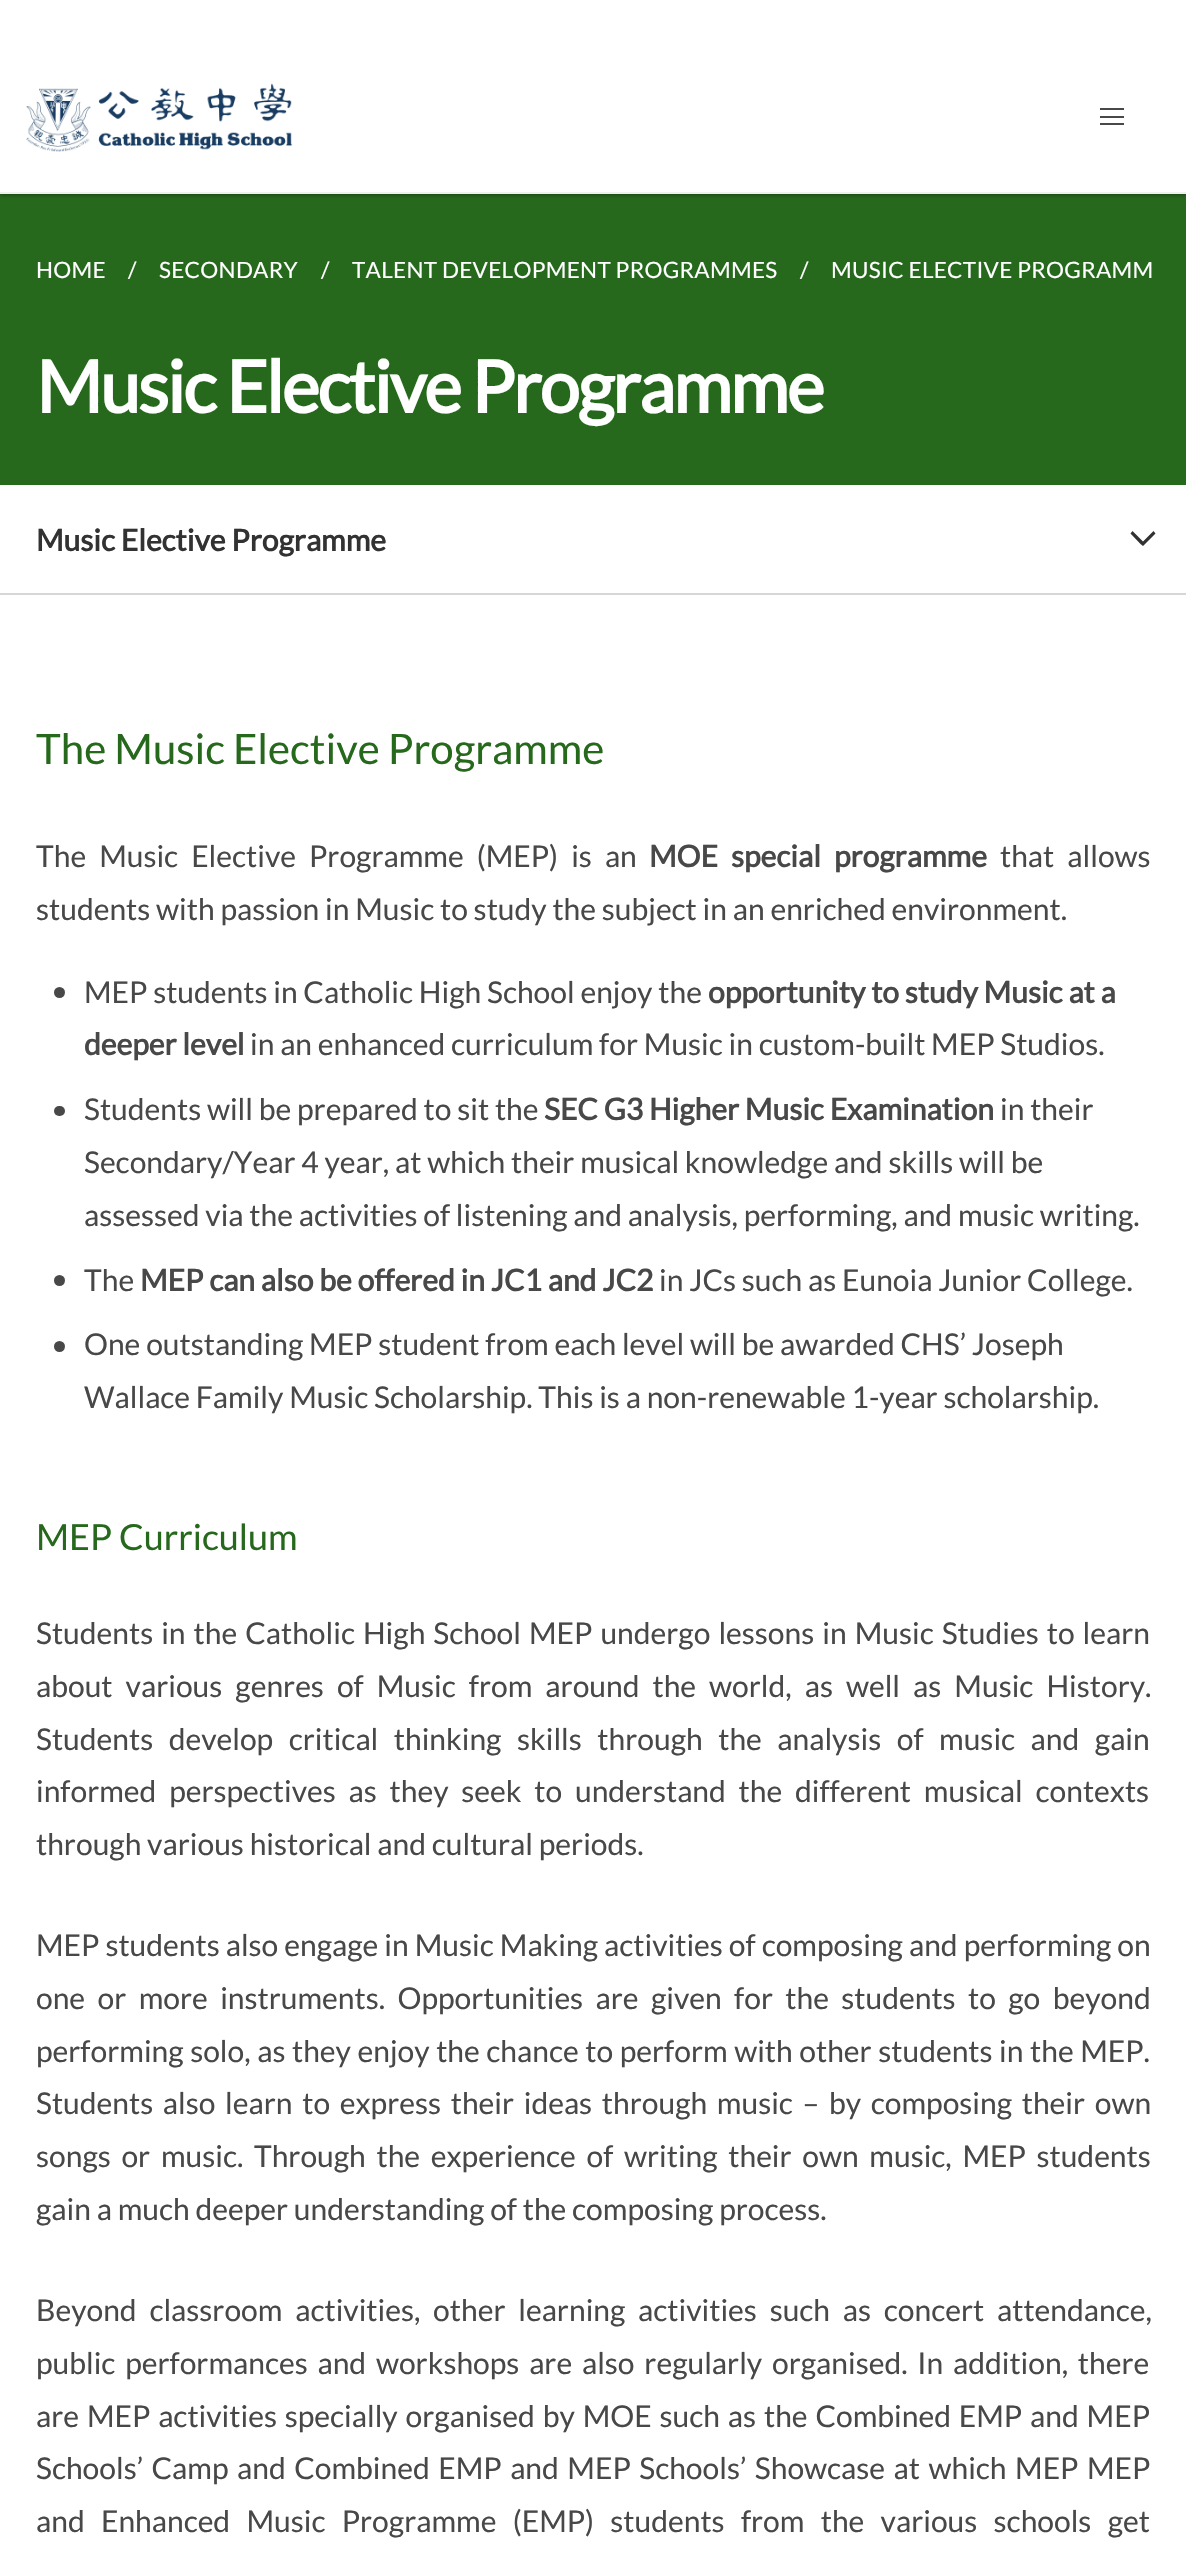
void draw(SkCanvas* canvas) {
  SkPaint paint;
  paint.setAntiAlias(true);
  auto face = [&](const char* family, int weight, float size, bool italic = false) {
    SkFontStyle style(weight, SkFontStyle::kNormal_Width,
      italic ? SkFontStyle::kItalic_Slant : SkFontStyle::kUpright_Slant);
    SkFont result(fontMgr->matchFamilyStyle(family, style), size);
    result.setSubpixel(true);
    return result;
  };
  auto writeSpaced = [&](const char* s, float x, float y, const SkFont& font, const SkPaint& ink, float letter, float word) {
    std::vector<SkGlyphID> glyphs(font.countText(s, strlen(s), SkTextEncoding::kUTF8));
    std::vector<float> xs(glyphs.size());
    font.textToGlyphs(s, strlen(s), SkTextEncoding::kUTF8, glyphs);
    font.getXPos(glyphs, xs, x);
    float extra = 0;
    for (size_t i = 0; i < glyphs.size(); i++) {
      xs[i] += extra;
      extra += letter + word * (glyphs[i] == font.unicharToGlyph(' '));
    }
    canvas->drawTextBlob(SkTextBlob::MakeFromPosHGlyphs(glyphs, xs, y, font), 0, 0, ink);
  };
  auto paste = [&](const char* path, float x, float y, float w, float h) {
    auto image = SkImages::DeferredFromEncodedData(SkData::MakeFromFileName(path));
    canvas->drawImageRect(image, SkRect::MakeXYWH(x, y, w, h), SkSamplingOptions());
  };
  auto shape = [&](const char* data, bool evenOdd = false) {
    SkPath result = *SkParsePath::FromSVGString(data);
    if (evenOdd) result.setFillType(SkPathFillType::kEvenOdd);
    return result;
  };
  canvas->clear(0xffffffff);
  paint.setColor(0xff26691c);
  canvas->drawRect(SkRect::MakeXYWH(0, 194, 1186, 291), paint);
  paint.setColor(0x3d000000);
  paint.setMaskFilter(SkMaskFilter::MakeBlur(kNormal_SkBlurStyle, 1.5f));
  canvas->drawRect(SkRect::MakeXYWH(0, -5, 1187, 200), paint);
  paint.setMaskFilter(nullptr);
  paint.setColor(0x1f000000);
  paint.setMaskFilter(SkMaskFilter::MakeBlur(kNormal_SkBlurStyle, 2));
  canvas->drawRect(SkRect::MakeXYWH(0, -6, 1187, 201), paint);
  paint.setMaskFilter(nullptr);
  paint.setColor(0xffffffff);
  canvas->drawRect(SkRect::MakeXYWH(0, 0, 1186, 192), paint);
  paint.setColor(0xfff0f0f0);
  canvas->drawRect(SkRect::MakeXYWH(0, 192, 1186, 2), paint);
  paste("img/1.png", 26, 83, 267, 69);
  {
    const struct { float x, y, w, h; SkColor color; } items[] = {
      {1100, 108, 24, 2, 0xff484848},
      {1100, 116, 24, 2, 0xff484848},
      {1100, 123, 24, 2, 0xff484848},
      {0, 593, 1186, 2, 0xffd6d6d6},
    };
    for (auto [x, y, w, h, color] : items) {
      paint.setColor(color);
      canvas->drawRect(SkRect::MakeXYWH(x, y, w, h), paint);
    }
  }
  paint.setColor(0xff323232);
  canvas->drawPath(shape("M1140.5 544L1130.5 533.5L1132.5 531L1143 541.5L1153.5 531L1155.5 533.5L1143 546Z"), paint);
  paint.setColor(0xff484848);
  canvas->drawCircle(59.5f, 992.5f, 5.5f, paint);
  canvas->drawRoundRect(SkRect::MakeXYWH(54, 1106, 11, 10), 5, 5, paint);
  canvas->drawCircle(59.5f, 1280.5f, 5.5f, paint);
  canvas->drawCircle(59.5f, 1346.5f, 5.5f, paint);
  auto f0 = face("Lato", 400, 22.5f);
  paint.setColor(0xffffffff);
  writeSpaced("HOME", 36, 278, f0, paint, 0.3f, 0);
  canvas->drawString("/", 128, 278, f0, paint);
  writeSpaced("SECONDARY", 159, 278, f0, paint, 0.3f, 0);
  canvas->drawString("/", 321, 278, f0, paint);
  writeSpaced("TALENT DEVELOPMENT PROGRAMMES", 352, 278, f0, paint, 0.3f, 0);
  canvas->drawString("/", 800, 278, f0, paint);
  writeSpaced("MUSIC ELECTIVE PROGRAMM", 831, 278, f0, paint, 0.3f, 0);
  auto f1 = face("Lato", 700, 72);
  writeSpaced("Music Elective Programme", 36, 413, f1, paint, -2.25f, 0);
  auto f2 = face("Lato", 700, 30);
  paint.setColor(0xff323232);
  canvas->drawString("Music Elective Programme", 36, 551, f2, paint);
  auto f3 = face("Lato", 400, 42);
  paint.setColor(0xff26691c);
  canvas->drawString("The Music Elective Programme", 36, 764, f3, paint);
  auto f4 = face("Lato", 400, 30);
  paint.setColor(0xff484848);
  writeSpaced("The Music Elective Programme (MEP) is an", 36, 867, f4, paint, 0, 7.25f);
  writeSpaced("MOE special programme", 649, 867, f2, paint, 0, 7.25f);
  writeSpaced("that allows", 1000, 867, f4, paint, 0, 7.25f);
  canvas->drawString("students with passion in Music to study the subject in an enriched environment.", 36, 920, f4, paint);
  canvas->drawString("MEP students in Catholic High School enjoy the", 84, 1003, f4, paint);
  canvas->drawString("opportunity to study Music at a", 708, 1003, f2, paint);
  canvas->drawString("deeper level", 84, 1055, f2, paint);
  canvas->drawString("in an enhanced curriculum for Music in custom-built MEP Studios.", 250, 1055, f4, paint);
  canvas->drawString("Students will be prepared to sit the", 84, 1120, f4, paint);
  canvas->drawString("SEC G3 Higher Music Examination", 544, 1120, f2, paint);
  {
    const struct { const char* s; float x, y; } items[] = {
      {"in their", 1000, 1120},
      {"Secondary/Year 4 year, at which their musical knowledge and skills will be", 84, 1173},
      {"assessed via the activities of listening and analysis, performing, and music writing.", 84, 1226},
      {"The", 84, 1291},
    };
    for (auto [s, x, y] : items) {
      canvas->drawString(s, x, y, f4, paint);
    }
  }
  canvas->drawString("MEP can also be offered in JC1 and JC2", 140, 1291, f2, paint);
  {
    const struct { const char* s; float x, y; } items[] = {
      {"in JCs such as Eunoia Junior College.", 659, 1291},
      {"One outstanding MEP student from each level will be awarded CHS’ Joseph", 84, 1355},
      {"Wallace Family Music Scholarship. This is a non-renewable 1-year scholarship.", 84, 1408},
    };
    for (auto [s, x, y] : items) {
      canvas->drawString(s, x, y, f4, paint);
    }
  }
  auto f5 = face("Lato", 400, 36);
  paint.setColor(0xff26691c);
  canvas->drawString("MEP Curriculum", 36, 1550, f5, paint);
  paint.setColor(0xff484848);
  writeSpaced("Students in the Catholic High School MEP undergo lessons in Music Studies to learn", 36, 1644, f4, paint, 0, 2.25f);
  writeSpaced("about various genres of Music from around the world, as well as Music History.", 36, 1697, f4, paint, 0, 7.25f);
  writeSpaced("Students develop critical thinking skills through the analysis of music and gain", 36, 1750, f4, paint, 0, 9.75f);
  writeSpaced("informed perspectives as they seek to understand the different musical contexts", 36, 1802, f4, paint, 0, 7);
  canvas->drawString("through various historical and cultural periods.", 36, 1855, f4, paint);
  writeSpaced("MEP students also engage in Music Making activities of composing and performing on", 36, 1956, f4, paint, 0, 0.25f);
  writeSpaced("one or more instruments. Opportunities are given for the students to go beyond", 36, 2009, f4, paint, 0, 6.6f);
  writeSpaced("performing solo, as they enjoy the chance to perform with other students in the MEP.", 36, 2062, f4, paint, 0, 0.8f);
  writeSpaced("Students also learn to express their ideas through music – by composing their own", 36, 2114, f4, paint, 0, 3.9f);
  writeSpaced("songs or music. Through the experience of writing their own music, MEP students", 36, 2167, f4, paint, 0, 4.9f);
  canvas->drawString("gain a much deeper understanding of the composing process.", 36, 2220, f4, paint);
  writeSpaced("Beyond classroom activities, other learning activities such as concert attendance,", 36, 2321, f4, paint, 0, 7);
  writeSpaced("public performances and workshops are also regularly organised. In addition, there", 36, 2374, f4, paint, 0, 4);
  writeSpaced("are MEP activities specially organised by MOE such as the Combined EMP and MEP", 36, 2427, f4, paint, 0, 2.1f);
  writeSpaced("Schools’ Camp and Combined EMP and MEP Schools’ Showcase at which MEP MEP", 36, 2479, f4, paint, 0, 2.75f);
  writeSpaced("and Enhanced Music Programme (EMP) students from the various schools get", 36, 2532, f4, paint, 0, 10.5f);
}
